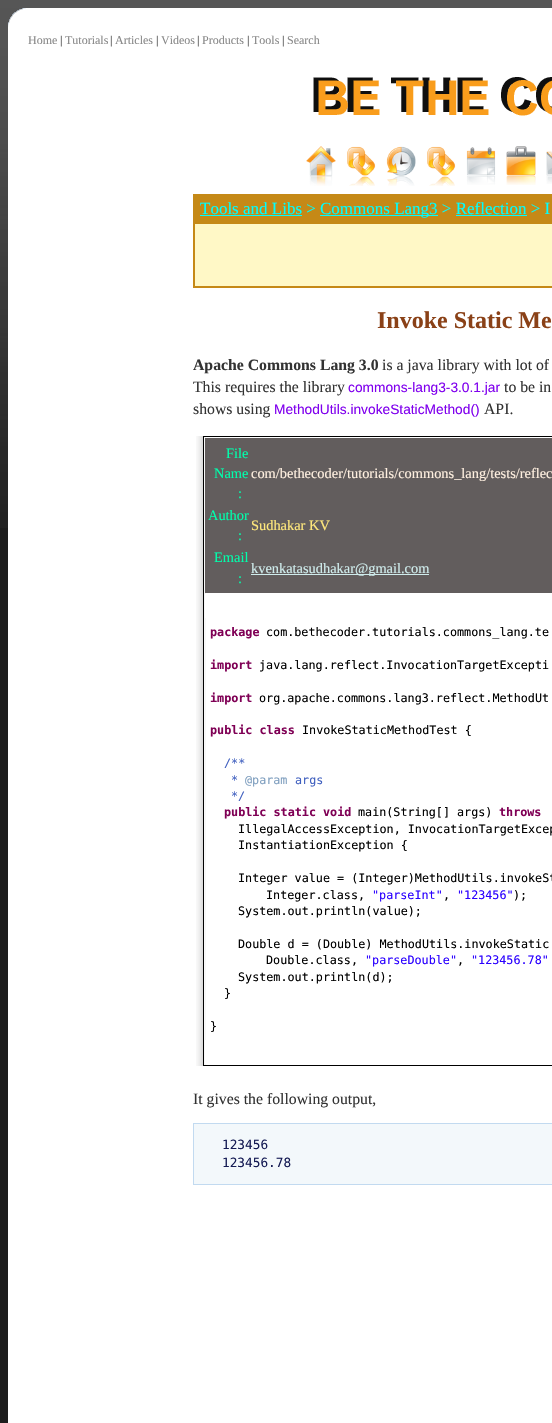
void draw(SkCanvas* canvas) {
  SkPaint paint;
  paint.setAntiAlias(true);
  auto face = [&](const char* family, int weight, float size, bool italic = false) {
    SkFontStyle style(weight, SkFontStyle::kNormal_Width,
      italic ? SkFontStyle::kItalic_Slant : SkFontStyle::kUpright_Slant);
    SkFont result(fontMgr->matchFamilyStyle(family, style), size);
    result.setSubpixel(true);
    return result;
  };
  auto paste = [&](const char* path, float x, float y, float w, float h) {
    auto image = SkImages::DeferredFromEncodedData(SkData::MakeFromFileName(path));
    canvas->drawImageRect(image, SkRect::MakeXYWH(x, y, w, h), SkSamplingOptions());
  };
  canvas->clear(0xff1d1d1d);
  paste("img/1.png", 0, 0, 552, 528);
  paint.setColor(0xffffffff);
  canvas->drawRect(SkRect::MakeXYWH(8, 8, 544, 1415), paint);
  paste("img/2.png", 8, 8, 18, 19);
  paste("img/3.png", 313, 77, 239, 39);
  paste("img/4.png", 306, 146, 30, 40);
  paste("img/5.png", 347, 146, 29, 40);
  paste("img/6.png", 386, 146, 30, 40);
  paste("img/7.png", 427, 146, 29, 40);
  paste("img/8.png", 466, 147, 30, 38);
  paste("img/9.png", 506, 146, 30, 39);
  paste("img/10.png", 546, 151, 6, 33);
  {
    const struct { float x, y, w, h; SkColor color; } items[] = {
      {193, 194, 359, 94, 0xffc58917},
      {200, 215, 102, 1, 0xff00ffff},
      {320, 215, 118, 1, 0xff00ffff},
      {456, 215, 71, 1, 0xff00ffff},
      {195, 224, 357, 62, 0xfffff8c6},
    };
    for (auto [x, y, w, h, color] : items) {
      paint.setColor(color);
      canvas->drawRect(SkRect::MakeXYWH(x, y, w, h), paint);
    }
  }
  paste("img/11.png", 196, 436, 10, 630);
  paint.setColor(0xd9ffffff);
  canvas->drawRect(SkRect::MakeXYWH(204, 436, 2, 630), paint);
  paint.setStroke(true);
  paint.setStrokeWidth(1);
  paint.setColor(0xff000000);
  canvas->drawRect(SkRect::MakeXYWH(203.5f, 436.5f, 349, 629), paint);
  paint.setStroke(false);
  {
    const struct { float x, y, w, h; SkColor color; } items[] = {
      {205, 438, 347, 155, 0xff625d5d},
      {251, 574, 178, 1, 0xffcfecec},
      {205, 594, 1, 24, 0xffffffff},
      {205, 1040, 1, 24, 0xffffffff},
    };
    for (auto [x, y, w, h, color] : items) {
      paint.setColor(color);
      canvas->drawRect(SkRect::MakeXYWH(x, y, w, h), paint);
    }
  }
  paint.setColor(0xfff3f8fb);
  canvas->drawRect(SkRect::MakeXYWH(193.5f, 1123.5f, 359, 61), paint);
  paint.setStroke(true);
  paint.setColor(0xffc2daf0);
  canvas->drawRect(SkRect::MakeXYWH(193.5f, 1123.5f, 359, 61), paint);
  auto f0 = face("Liberation Serif", 400, 12);
  paint.setStroke(false);
  paint.setColor(0xff888888);
  canvas->drawString("Home", 28, 44, f0, paint);
  paint.setColor(0xff333333);
  canvas->drawString("|", 60, 44, f0, paint);
  paint.setColor(0xff888888);
  canvas->drawString("Tutorials", 65, 44, f0, paint);
  paint.setColor(0xff333333);
  canvas->drawString("|", 110, 44, f0, paint);
  paint.setColor(0xff888888);
  canvas->drawString("Articles", 115, 44, f0, paint);
  paint.setColor(0xff333333);
  canvas->drawString("|", 156, 44, f0, paint);
  paint.setColor(0xff888888);
  canvas->drawString("Videos", 161, 44, f0, paint);
  paint.setColor(0xff333333);
  canvas->drawString("|", 197, 44, f0, paint);
  paint.setColor(0xff888888);
  canvas->drawString("Products", 202, 44, f0, paint);
  paint.setColor(0xff333333);
  canvas->drawString("|", 247, 44, f0, paint);
  paint.setColor(0xff888888);
  canvas->drawString("Tools", 252, 44, f0, paint);
  paint.setColor(0xff333333);
  canvas->drawString("|", 282, 44, f0, paint);
  paint.setColor(0xff888888);
  canvas->drawString("Search", 287, 44, f0, paint);
  auto f1 = face("Liberation Serif", 400, 17);
  paint.setColor(0xff00ffff);
  canvas->drawString("Tools and Libs >", 200, 214, f1, paint);
  canvas->drawString("Commons Lang3 > Reflection > I", 320, 214, f1, paint);
  auto f2 = face("Liberation Serif", 700, 24);
  paint.setColor(0xff8a4117);
  canvas->drawString("Invoke Static Me", 377, 328, f2, paint);
  auto f3 = face("Liberation Serif", 700, 15.75f);
  paint.setColor(0xff333333);
  canvas->drawString("Apache Commons Lang 3.0", 193, 370, f3, paint);
  auto f4 = face("Liberation Serif", 400, 15.75f);
  canvas->drawString("is a java library with lot of", 382, 370, f4, paint);
  canvas->drawString("This requires the library", 193, 392, f4, paint);
  auto f5 = face("Liberation Sans", 400, 13.75f);
  paint.setColor(0xff8000ee);
  canvas->drawString("commons-lang3-3.0.1.jar", 348, 392, f5, paint);
  paint.setColor(0xff333333);
  canvas->drawString("to be in", 504, 392, f4, paint);
  canvas->drawString("shows using", 193, 414, f4, paint);
  paint.setColor(0xff8000ee);
  canvas->drawString("MethodUtils.invokeStaticMethod()", 274, 414, f5, paint);
  paint.setColor(0xff333333);
  canvas->drawString("API.", 484, 414, f4, paint);
  auto f6 = face("Liberation Serif", 400, 14.4f);
  paint.setColor(0xff00ffac);
  {
    const struct { const char* s; float x, y; } items[] = {
      {"File", 226, 458},
      {"Name", 214, 478},
      {":", 238, 498},
    };
    for (auto [s, x, y] : items) {
      canvas->drawString(s, x, y, f6, paint);
    }
  }
  paint.setColor(0xfffff0e0);
  canvas->drawString("com/bethecoder/tutorials/commons_lang/tests/reflec", 251, 478, f6, paint);
  paint.setColor(0xff00ffac);
  canvas->drawString("Author", 208, 520, f6, paint);
  canvas->drawString(":", 238, 540, f6, paint);
  paint.setColor(0xffffe87c);
  canvas->drawString("Sudhakar KV", 251, 530, f6, paint);
  paint.setColor(0xff00ffac);
  canvas->drawString("Email", 214, 562, f6, paint);
  canvas->drawString(":", 238, 583, f6, paint);
  paint.setColor(0xffcfecec);
  canvas->drawString("kvenkatasudhakar@gmail.com", 251, 573, f6, paint);
  auto f7 = face("DejaVu Sans Mono", 700, 11.75f);
  paint.setColor(0xff7f0055);
  canvas->drawString("package", 210, 636, f7, paint);
  auto f8 = face("DejaVu Sans Mono", 400, 11.75f);
  paint.setColor(0xff000000);
  canvas->drawString("com.bethecoder.tutorials.commons_lang.te", 266, 636, f8, paint);
  paint.setColor(0xff7f0055);
  canvas->drawString("import", 210, 669, f7, paint);
  paint.setColor(0xff000000);
  canvas->drawString("java.lang.reflect.InvocationTargetExcepti", 259, 669, f8, paint);
  paint.setColor(0xff7f0055);
  canvas->drawString("import", 210, 702, f7, paint);
  paint.setColor(0xff000000);
  canvas->drawString("org.apache.commons.lang3.reflect.MethodUt", 259, 702, f8, paint);
  paint.setColor(0xff7f0055);
  canvas->drawString("public class", 210, 734, f7, paint);
  paint.setColor(0xff000000);
  canvas->drawString("InvokeStaticMethodTest {", 302, 734, f8, paint);
  paint.setColor(0xff3f5fbf);
  canvas->drawString("/**", 224, 767, f8, paint);
  canvas->drawString("*", 231, 784, f8, paint);
  paint.setColor(0xff7f9fbf);
  canvas->drawString("@param", 245, 784, f8, paint);
  paint.setColor(0xff3f5fbf);
  canvas->drawString("args", 295, 784, f8, paint);
  canvas->drawString("*/", 231, 800, f8, paint);
  paint.setColor(0xff7f0055);
  canvas->drawString("public static void", 224, 816, f7, paint);
  paint.setColor(0xff000000);
  canvas->drawString("main(String[] args)", 358, 816, f8, paint);
  paint.setColor(0xff7f0055);
  canvas->drawString("throws", 499, 816, f7, paint);
  paint.setColor(0xff000000);
  {
    const struct { const char* s; float x, y; } items[] = {
      {"IllegalAccessException, InvocationTargetExcep", 238, 833},
      {"InstantiationException {", 238, 849},
      {"Integer value = (Integer)MethodUtils.invokeSt", 238, 882},
      {"Integer.class,", 266, 899},
    };
    for (auto [s, x, y] : items) {
      canvas->drawString(s, x, y, f8, paint);
    }
  }
  paint.setColor(0xff2a00ff);
  canvas->drawString("\"parseInt\"", 372, 899, f8, paint);
  paint.setColor(0xff000000);
  canvas->drawString(",", 443, 899, f8, paint);
  paint.setColor(0xff2a00ff);
  canvas->drawString("\"123456\"", 457, 899, f8, paint);
  paint.setColor(0xff000000);
  {
    const struct { const char* s; float x, y; } items[] = {
      {");", 513, 899},
      {"System.out.println(value);", 238, 915},
      {"Double d = (Double) MethodUtils.invokeStatic", 238, 948},
      {"Double.class,", 266, 964},
    };
    for (auto [s, x, y] : items) {
      canvas->drawString(s, x, y, f8, paint);
    }
  }
  paint.setColor(0xff2a00ff);
  canvas->drawString("\"parseDouble\"", 365, 964, f8, paint);
  paint.setColor(0xff000000);
  canvas->drawString(",", 457, 964, f8, paint);
  paint.setColor(0xff2a00ff);
  canvas->drawString("\"123456.78\"", 471, 964, f8, paint);
  paint.setColor(0xff000000);
  {
    const struct { const char* s; float x, y; } items[] = {
      {"System.out.println(d);", 238, 981},
      {"}", 224, 997},
      {"}", 210, 1030},
    };
    for (auto [s, x, y] : items) {
      canvas->drawString(s, x, y, f8, paint);
    }
  }
  paint.setColor(0xff333333);
  canvas->drawString("It gives the following output,", 193, 1104, f4, paint);
  auto f9 = face("DejaVu Sans Mono", 400, 12.75f);
  paint.setColor(0xff151b54);
  canvas->drawString("123456", 222, 1149, f9, paint);
  canvas->drawString("123456.78", 222, 1167, f9, paint);
}
